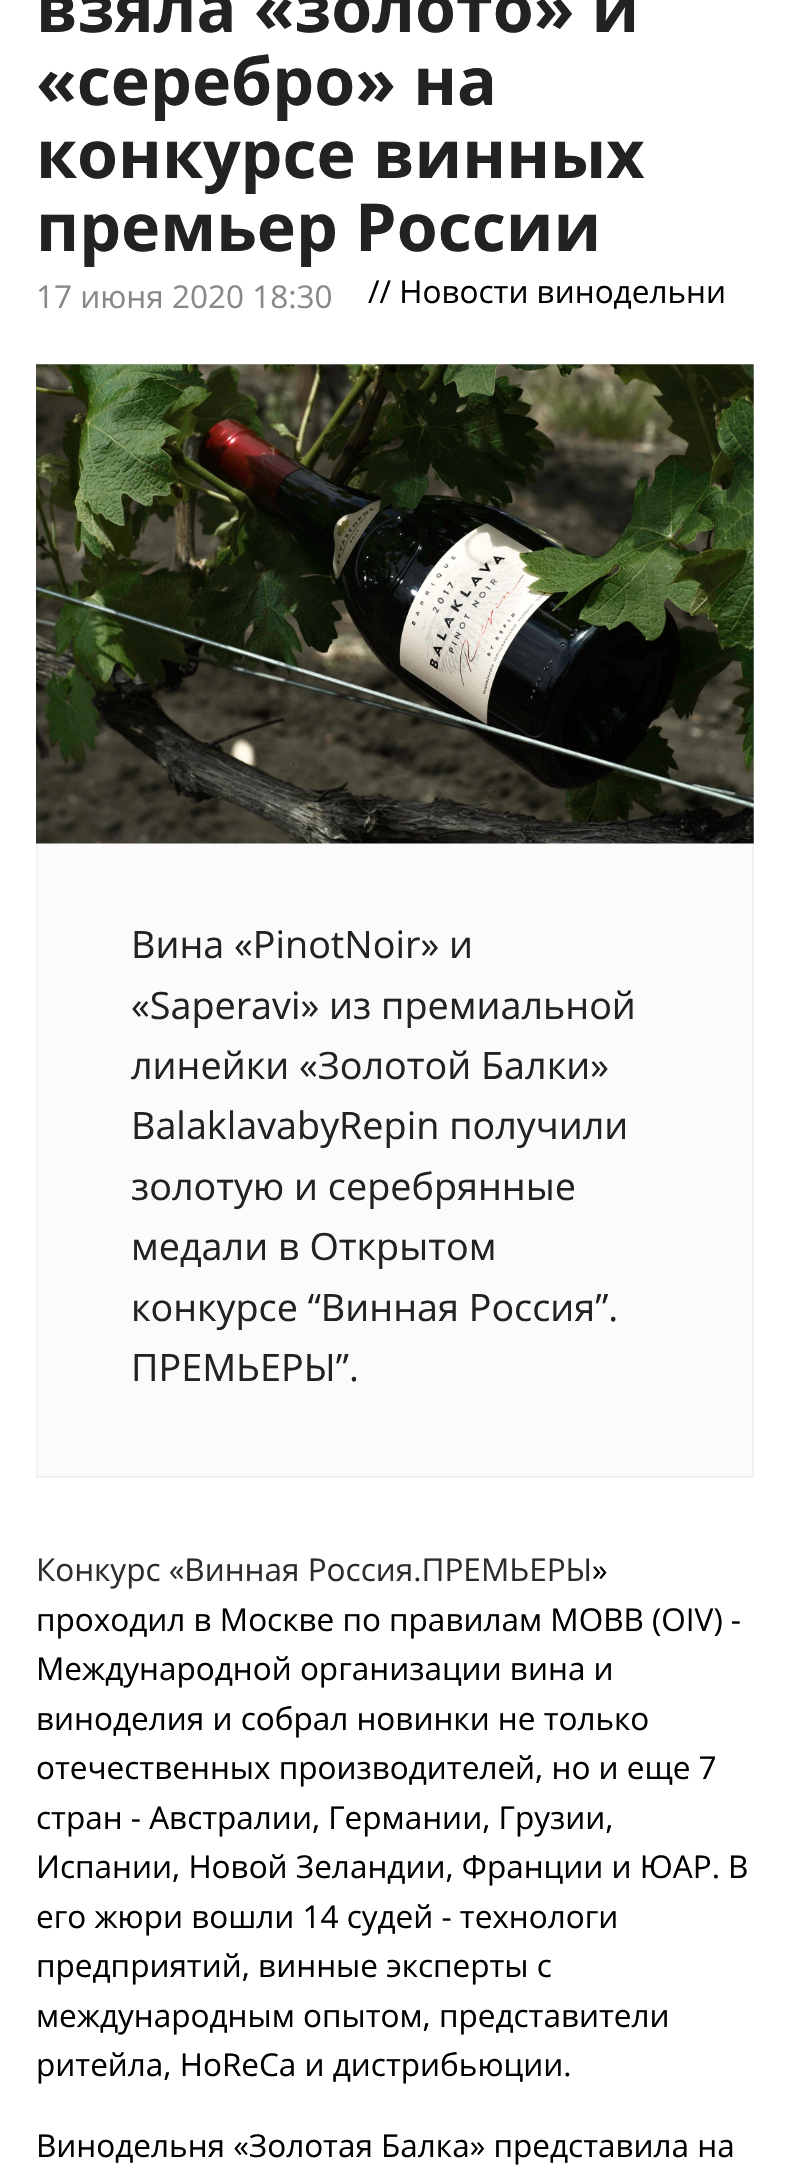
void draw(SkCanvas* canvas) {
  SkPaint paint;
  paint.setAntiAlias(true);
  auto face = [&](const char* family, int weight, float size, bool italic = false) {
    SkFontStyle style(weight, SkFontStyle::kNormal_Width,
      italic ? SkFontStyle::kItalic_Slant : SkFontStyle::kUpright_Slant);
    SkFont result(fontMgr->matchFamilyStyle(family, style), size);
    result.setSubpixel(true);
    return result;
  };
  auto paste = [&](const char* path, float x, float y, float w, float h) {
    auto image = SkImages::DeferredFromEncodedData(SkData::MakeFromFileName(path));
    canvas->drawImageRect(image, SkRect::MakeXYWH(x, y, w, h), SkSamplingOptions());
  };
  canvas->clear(0xffffffff);
  paste("img/1.png", 36, 364, 718, 480);
  {
    const struct { float x, y, w, h; SkColor color; } items[] = {
      {38, 844, 714, 632, 0xfffbfbfb},
      {752, 844, 2, 634, 0xfff2f2f2},
      {36, 1476, 718, 2, 0xfff2f2f2},
      {36, 844, 2, 634, 0xfff2f2f2},
    };
    for (auto [x, y, w, h, color] : items) {
      paint.setColor(color);
      canvas->drawRect(SkRect::MakeXYWH(x, y, w, h), paint);
    }
  }
  auto f0 = face("Open Sans", 700, 66.25f);
  paint.setColor(0xff222222);
  {
    const struct { const char* s; float x, y; } items[] = {
      {"взяла «золото» и", 36, 32},
      {"«серебро» на", 36, 105},
      {"конкурсе винных", 36, 178},
      {"премьер России", 36, 251},
    };
    for (auto [s, x, y] : items) {
      canvas->drawString(s, x, y, f0, paint);
    }
  }
  auto f1 = face("Open Sans", 400, 31.5f);
  paint.setColor(0xff888888);
  canvas->drawString("17 июня 2020 18:30", 36, 308, f1, paint);
  paint.setColor(0xff000000);
  canvas->drawString("// Новости винодельни", 368, 303, f1, paint);
  auto f2 = face("Open Sans", 400, 37.75f);
  paint.setColor(0xff222222);
  {
    const struct { const char* s; float x, y; } items[] = {
      {"Вина «PinotNoir» и", 131, 958},
      {"«Saperavi» из премиальной", 131, 1019},
      {"линейки «Золотой Балки»", 131, 1079},
      {"BalaklavabyRepin получили", 131, 1139},
      {"золотую и серебрянные", 131, 1200},
      {"медали в Открытом", 131, 1260},
      {"конкурсе “Винная Россия”.", 131, 1321},
      {"ПРЕМЬЕРЫ”.", 131, 1381},
    };
    for (auto [s, x, y] : items) {
      canvas->drawString(s, x, y, f2, paint);
    }
  }
  paint.setColor(0xff2c2c2c);
  canvas->drawString("Конкурс «Винная Россия.ПРЕМЬЕРЫ", 36, 1581, f1, paint);
  paint.setColor(0xff000000);
  {
    const struct { const char* s; float x, y; } items[] = {
      {"»", 592, 1581},
      {"проходил в Москве по правилам МОВВ (OIV) -", 36, 1631},
      {"Международной организации вина и", 36, 1680},
      {"виноделия и собрал новинки не только", 36, 1730},
      {"отечественных производителей, но и еще 7", 36, 1779},
      {"стран - Австралии, Германии, Грузии,", 36, 1829},
      {"Испании, Новой Зеландии, Франции и ЮАР. В", 36, 1878},
      {"его жюри вошли 14 судей - технологи", 36, 1928},
      {"предприятий, винные эксперты с", 36, 1977},
      {"международным опытом, представители", 36, 2027},
      {"ритейла, HoReCa и дистрибьюции.", 36, 2076},
      {"Винодельня «Золотая Балка» представила на", 36, 2157},
    };
    for (auto [s, x, y] : items) {
      canvas->drawString(s, x, y, f1, paint);
    }
  }
}
